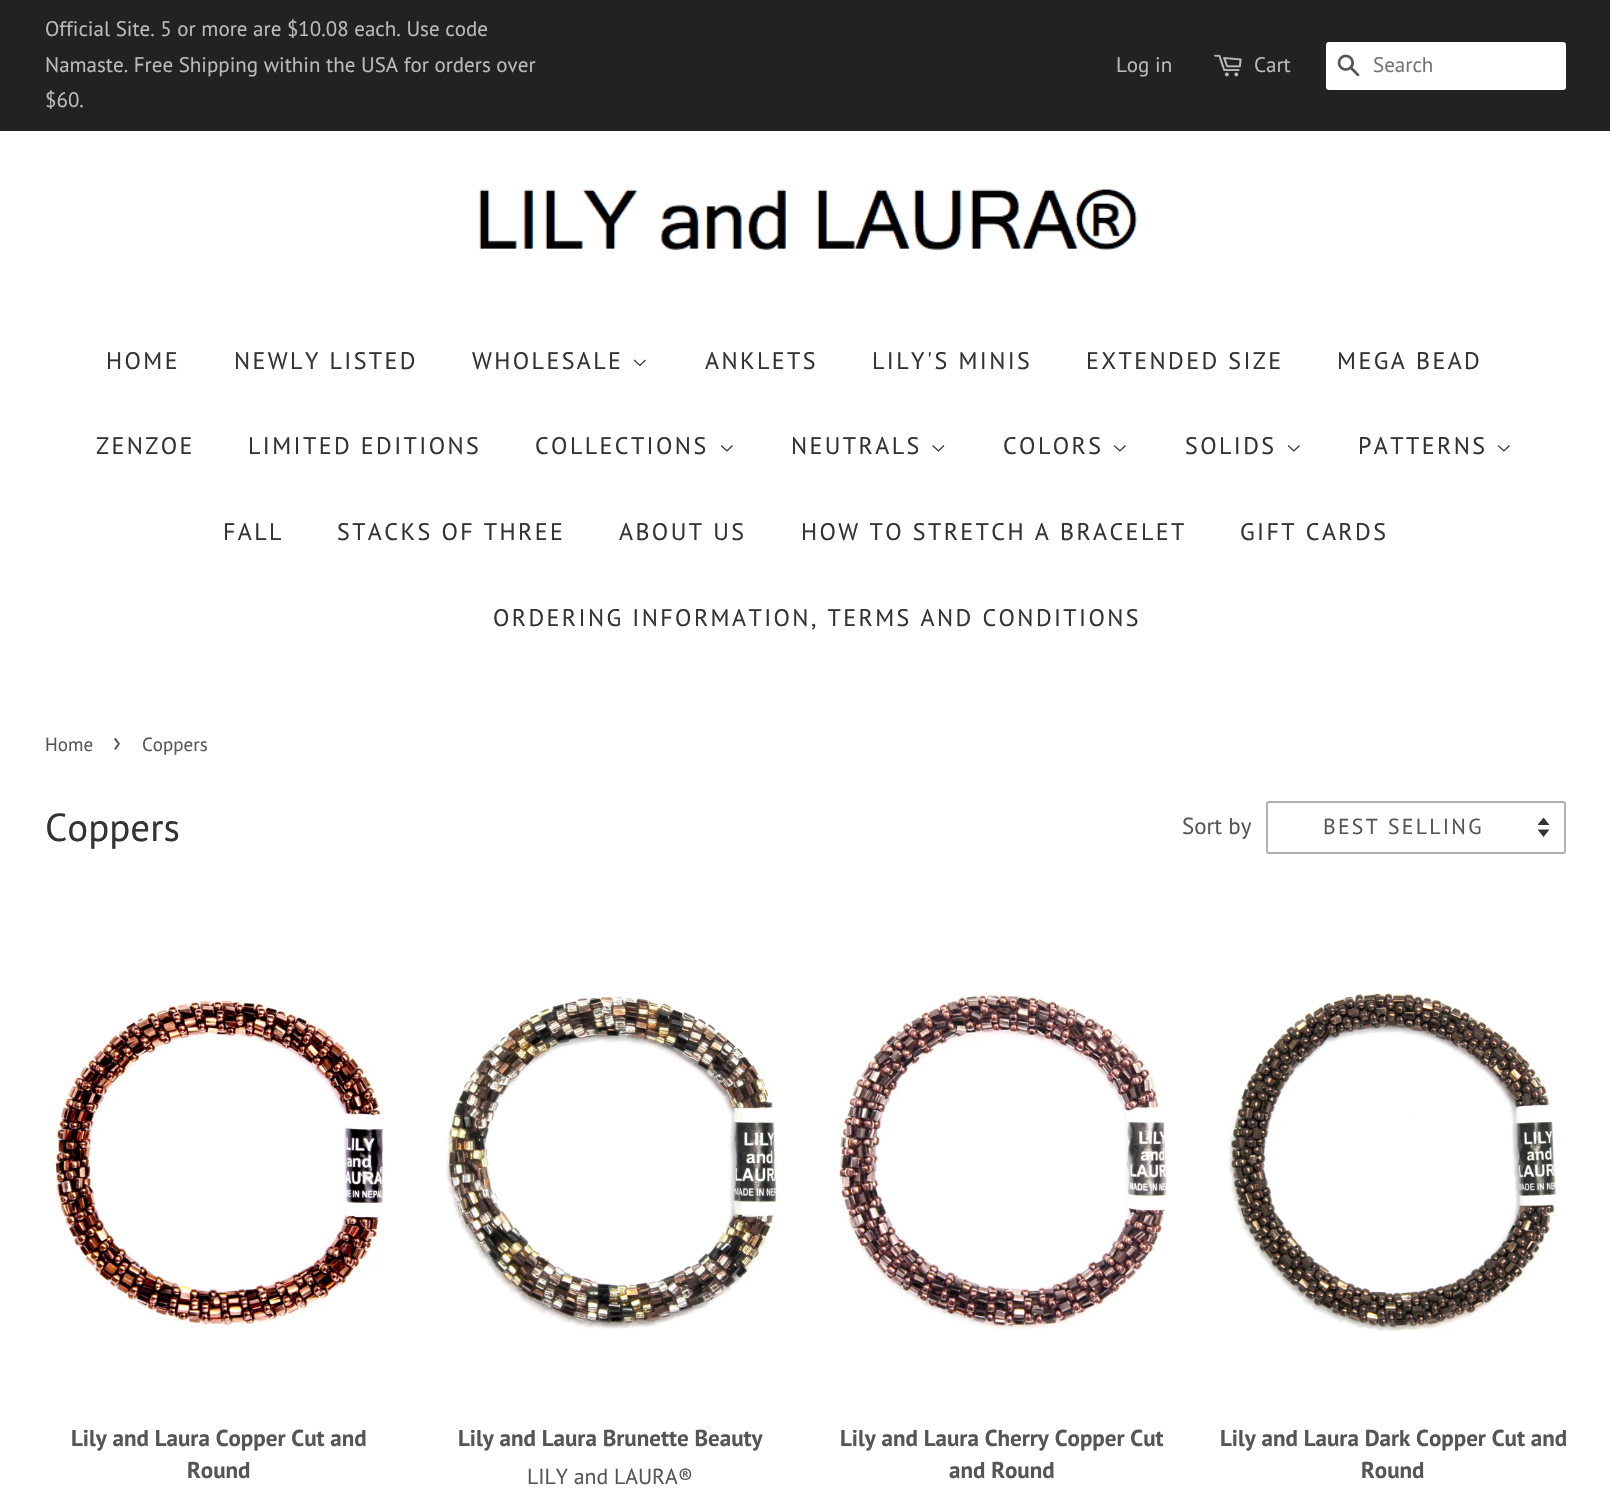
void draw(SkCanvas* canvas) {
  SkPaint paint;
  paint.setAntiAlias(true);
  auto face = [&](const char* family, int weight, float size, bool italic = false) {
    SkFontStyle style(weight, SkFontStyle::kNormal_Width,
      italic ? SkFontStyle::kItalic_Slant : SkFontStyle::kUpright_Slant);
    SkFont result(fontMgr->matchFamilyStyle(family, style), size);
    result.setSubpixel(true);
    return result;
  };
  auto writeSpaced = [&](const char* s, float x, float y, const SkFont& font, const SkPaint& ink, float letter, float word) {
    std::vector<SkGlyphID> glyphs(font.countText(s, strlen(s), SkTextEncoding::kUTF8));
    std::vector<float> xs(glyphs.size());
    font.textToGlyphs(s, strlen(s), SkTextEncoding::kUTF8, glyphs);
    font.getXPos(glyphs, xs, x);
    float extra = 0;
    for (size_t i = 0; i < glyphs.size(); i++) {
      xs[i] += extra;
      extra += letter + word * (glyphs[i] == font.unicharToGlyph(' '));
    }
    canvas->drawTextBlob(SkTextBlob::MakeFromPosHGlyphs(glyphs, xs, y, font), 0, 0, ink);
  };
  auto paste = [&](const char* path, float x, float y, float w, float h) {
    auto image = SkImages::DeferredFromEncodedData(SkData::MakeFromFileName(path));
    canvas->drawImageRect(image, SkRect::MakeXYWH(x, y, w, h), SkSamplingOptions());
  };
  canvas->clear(0xffffffff);
  paint.setColor(0xff222222);
  canvas->drawRect(SkRect::MakeXYWH(0, 0, 1610, 131), paint);
  paste("img/1.png", 1214, 54, 28, 23);
  paint.setColor(0xffffffff);
  canvas->drawRoundRect(SkRect::MakeXYWH(1326, 42, 240, 48), 3, 3, paint);
  paste("img/2.png", 1337, 54, 23, 23);
  paste("img/3.png", 479, 188, 658, 63);
  paste("img/4.png", 633, 359, 13, 8);
  paste("img/5.png", 720, 445, 13, 7);
  paste("img/6.png", 932, 445, 13, 7);
  paste("img/5.png", 1113, 445, 13, 7);
  paste("img/5.png", 1287, 445, 13, 7);
  paste("img/5.png", 1497, 445, 13, 7);
  paste("img/7.png", 1538, 818, 12, 19);
  paint.setStroke(true);
  paint.setStrokeWidth(2);
  paint.setColor(0xffb1b1b1);
  canvas->drawRoundRect(SkRect::MakeXYWH(1267, 802, 298, 51), 2, 2, paint);
  paste("img/8.png", 52, 1000, 333, 328);
  paste("img/9.png", 445, 996, 332, 333);
  paste("img/10.png", 838, 993, 329, 337);
  paste("img/11.png", 1228, 992, 329, 340);
  auto f0 = face("PT Sans", 400, 21);
  paint.setStroke(false);
  paint.setColor(0xffbbbbbb);
  {
    const struct { const char* s; float x, y; } items[] = {
      {"Official Site. 5 or more are $10.08 each. Use code", 45, 36},
      {"Namaste. Free Shipping within the USA for orders over", 45, 72},
      {"$60.", 45, 107},
      {"Log in", 1116, 72},
      {"Cart", 1254, 72},
    };
    for (auto [s, x, y] : items) {
      canvas->drawString(s, x, y, f0, paint);
    }
  }
  paint.setColor(0xff757575);
  canvas->drawString("Search", 1373, 72, f0, paint);
  auto f1 = face("PT Sans", 400, 24);
  paint.setColor(0xff333333);
  {
    const struct { const char* s; float x, y; } items[] = {
      {"HOME", 106, 369},
      {"NEWLY LISTED", 234, 369},
      {"WHOLESALE", 472, 369},
      {"ANKLETS", 705, 369},
      {"LILY'S MINIS", 872, 369},
      {"EXTENDED SIZE", 1086, 369},
      {"MEGA BEAD", 1337, 369},
      {"ZENZOE", 96, 454},
      {"LIMITED EDITIONS", 248, 454},
      {"COLLECTIONS", 535, 454},
      {"NEUTRALS", 791, 454},
      {"COLORS", 1003, 454},
      {"SOLIDS", 1185, 454},
      {"PATTERNS", 1358, 454},
      {"FALL", 223, 540},
      {"STACKS OF THREE", 337, 540},
      {"ABOUT US", 619, 540},
      {"HOW TO STRETCH A BRACELET", 801, 540},
      {"GIFT CARDS", 1240, 540},
      {"ORDERING INFORMATION, TERMS AND CONDITIONS", 493, 626},
    };
    for (auto [s, x, y] : items) {
      writeSpaced(s, x, y, f1, paint, 2.4f, 0);
    }
  }
  auto f2 = face("PT Sans", 400, 19);
  paint.setColor(0xff555555);
  canvas->drawString("Home", 45, 751, f2, paint);
  auto f3 = face("PT Sans", 400, 27);
  canvas->drawString("›", 113, 751, f3, paint);
  canvas->drawString("Coppers", 142, 751, f2, paint);
  auto f4 = face("PT Sans", 400, 39);
  paint.setColor(0xff333333);
  canvas->drawString("Coppers", 45, 841, f4, paint);
  auto f5 = face("PT Sans", 400, 23);
  paint.setColor(0xff555555);
  canvas->drawString("Sort by", 1182, 834, f5, paint);
  auto f6 = face("PT Sans", 400, 21.75f);
  writeSpaced("BEST SELLING", 1323, 834, f6, paint, 2.25f, 0);
  auto f7 = face("PT Sans", 700, 23);
  {
    const struct { const char* s; float x, y; } items[] = {
      {"Lily and Laura Copper Cut and", 71, 1446},
      {"Round", 187, 1478},
      {"Lily and Laura Brunette Beauty", 458, 1446},
    };
    for (auto [s, x, y] : items) {
      canvas->drawString(s, x, y, f7, paint);
    }
  }
  canvas->drawString("LILY and LAURA®", 527, 1484, f6, paint);
  {
    const struct { const char* s; float x, y; } items[] = {
      {"Lily and Laura Cherry Copper Cut", 840, 1446},
      {"and Round", 949, 1478},
      {"Lily and Laura Dark Copper Cut and", 1220, 1446},
      {"Round", 1361, 1478},
    };
    for (auto [s, x, y] : items) {
      canvas->drawString(s, x, y, f7, paint);
    }
  }
}
